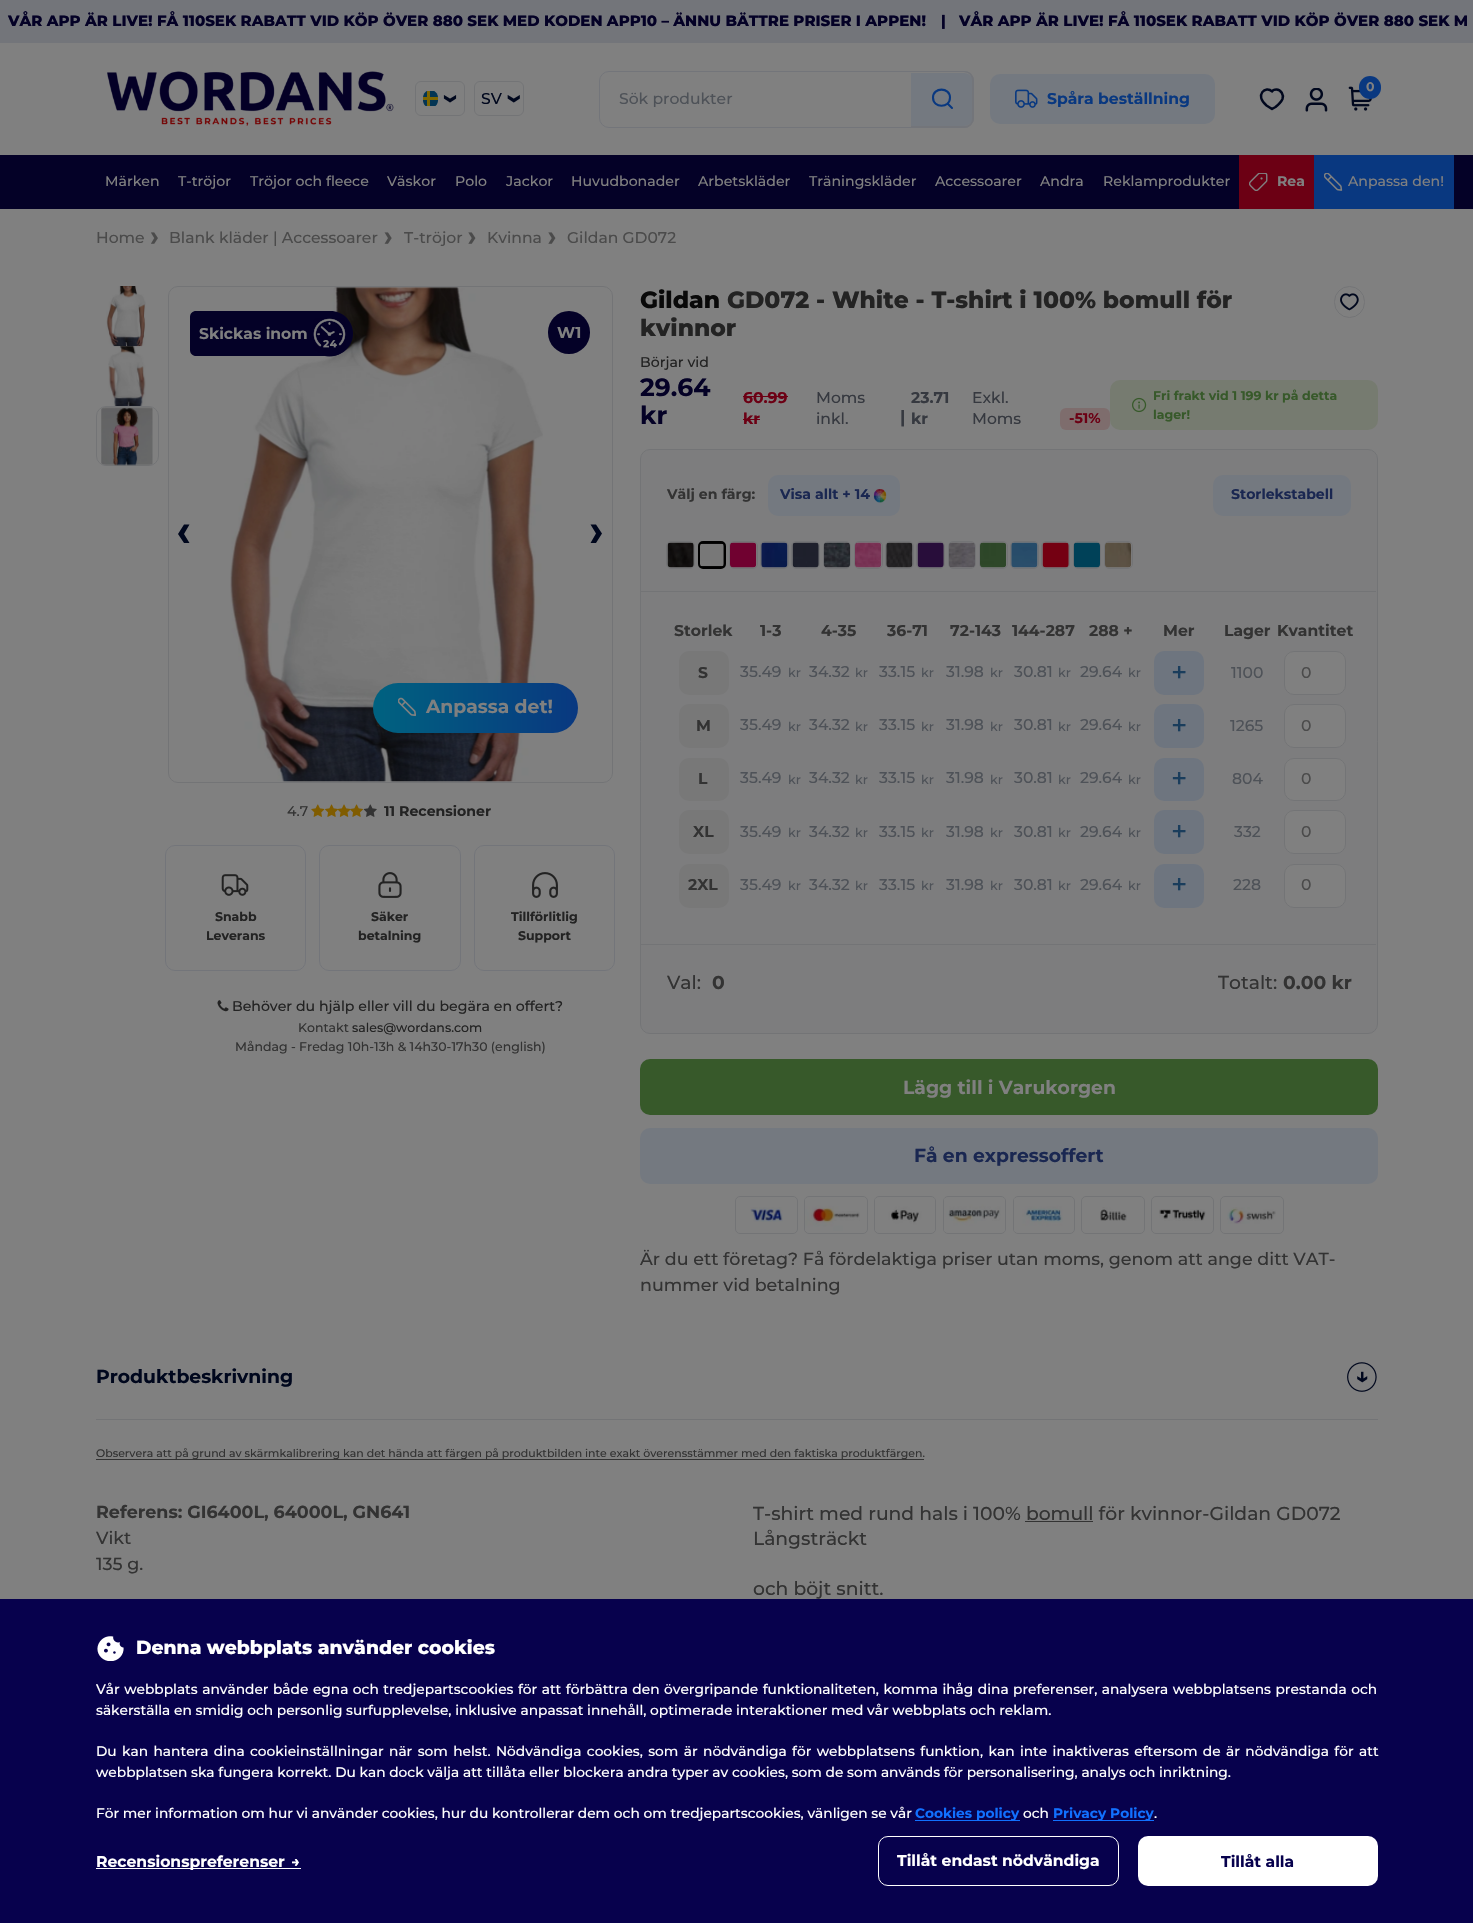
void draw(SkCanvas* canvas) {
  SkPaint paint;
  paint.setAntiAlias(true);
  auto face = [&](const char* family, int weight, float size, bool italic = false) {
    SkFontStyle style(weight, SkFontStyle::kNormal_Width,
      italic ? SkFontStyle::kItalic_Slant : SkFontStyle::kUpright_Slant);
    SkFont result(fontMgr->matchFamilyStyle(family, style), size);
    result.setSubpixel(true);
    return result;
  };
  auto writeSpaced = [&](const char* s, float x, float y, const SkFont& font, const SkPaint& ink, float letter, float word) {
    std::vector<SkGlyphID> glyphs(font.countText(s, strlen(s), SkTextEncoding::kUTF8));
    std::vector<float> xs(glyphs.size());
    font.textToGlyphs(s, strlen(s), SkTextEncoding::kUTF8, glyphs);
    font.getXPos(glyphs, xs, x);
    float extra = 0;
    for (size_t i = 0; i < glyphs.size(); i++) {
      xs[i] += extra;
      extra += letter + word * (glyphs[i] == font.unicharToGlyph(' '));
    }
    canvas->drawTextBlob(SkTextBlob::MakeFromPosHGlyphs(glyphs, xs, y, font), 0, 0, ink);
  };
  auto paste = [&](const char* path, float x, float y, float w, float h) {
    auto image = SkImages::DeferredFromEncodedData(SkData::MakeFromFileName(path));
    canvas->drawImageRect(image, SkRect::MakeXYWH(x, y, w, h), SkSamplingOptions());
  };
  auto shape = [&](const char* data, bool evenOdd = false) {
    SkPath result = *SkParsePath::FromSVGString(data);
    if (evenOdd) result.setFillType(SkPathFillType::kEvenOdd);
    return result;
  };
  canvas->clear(0xff808080);
  paint.setColor(0xff73757a);
  canvas->drawRect(SkRect::MakeXYWH(0, 0, 1473, 43), paint);
  paste("img/1.png", 107, 71, 287, 55);
  paint.setStroke(true);
  paint.setStrokeWidth(1);
  paint.setColor(0xff737476);
  canvas->drawRoundRect(SkRect::MakeXYWH(415.5f, 81.5f, 49, 34), 5.5f, 5.5f, paint);
  canvas->save();
  canvas->clipPath(shape("M430.5 90C434.5 90 438 93.5 438 97.5V100.5C438 104.5 434.5 108 430.5 108C426.5 108 423 104.5 423 100.5V97.5C423 93.5 426.5 90 430.5 90Z"), true);
  paint.setStroke(false);
  paint.setColor(0xff033554);
  canvas->drawRect(SkRect::MakeXYWH(423, 91, 15, 15), paint);
  canvas->restore();
  paint.setColor(0xff7f6600);
  canvas->drawRect(SkRect::MakeXYWH(423, 97, 15, 3), paint);
  canvas->drawRect(SkRect::MakeXYWH(427, 91, 3, 15), paint);
  paste("img/2.png", 443, 95, 14, 8);
  paint.setStroke(true);
  paint.setColor(0xff737476);
  canvas->drawRoundRect(SkRect::MakeXYWH(474.5f, 81.5f, 49, 34), 5.5f, 5.5f, paint);
  paste("img/3.png", 507, 95, 13, 8);
  paste("img/4.png", 1348, 86, 25, 25);
  paint.setStroke(false);
  paint.setColor(0xff093880);
  canvas->drawRoundRect(SkRect::MakeXYWH(1359, 76, 22, 23), 11, 11, paint);
  paint.setStroke(true);
  paint.setStrokeWidth(2.5f);
  paint.setStrokeCap(SkPaint::kRound_Cap);
  paint.setStrokeJoin(SkPaint::kRound_Join);
  paint.setColor(0xff00071d);
  canvas->drawPath(shape("M1276.5 89.5C1281 89.5 1284 95 1282.5 99C1281 102.5 1278 105 1275.5 107L1272 109L1266.5 105.5C1254 95 1266 85 1272 91.5C1272.5 90.5 1274 89.5 1276.5 89.5Z"), paint);
  paste("img/5.png", 1305, 88, 23, 24);
  paint.setStrokeWidth(1);
  paint.setStrokeCap(SkPaint::kButt_Cap);
  paint.setStrokeJoin(SkPaint::kMiter_Join);
  paint.setColor(0xff73757a);
  canvas->drawRoundRect(SkRect::MakeXYWH(599.5f, 71.5f, 374, 56), 9.5f, 9.5f, paint);
  paint.setStroke(false);
  paint.setColor(0xff747980);
  canvas->drawPath(shape("M911 73H964C969 73 973 77 973 82V117C973 122 969 126 964 126H911Z"), paint);
  paint.setColor(0xff73757a);
  canvas->drawPath(shape("M911 71H964C970 71 974 75 974 81V118C974 123 970 128 964 128H911ZM911 72H964C969 72 972 76 972 81V118C972 123 969 126 964 126H911Z", true), paint);
  paint.setStroke(true);
  paint.setStrokeWidth(2.1f);
  paint.setStrokeCap(SkPaint::kRound_Cap);
  paint.setStrokeJoin(SkPaint::kRound_Join);
  paint.setColor(0xff093880);
  canvas->drawPath(shape("M952 108L947.5 103.5M950 97.5C950 108.5 933 108.5 933 97.5C933 87 950 87 950 97.5Z"), paint);
  paint.setStroke(false);
  paint.setColor(0xff747980);
  canvas->drawRoundRect(SkRect::MakeXYWH(990, 74, 225, 50), 10, 10, paint);
  paste("img/6.png", 1015, 89, 23, 19);
  paint.setColor(0xff040127);
  canvas->drawRect(SkRect::MakeXYWH(0, 155, 1473, 54), paint);
  paint.setColor(0xff6c0014);
  canvas->drawRect(SkRect::MakeXYWH(1239, 155, 75, 54), paint);
  paste("img/7.png", 1249, 173, 19, 18);
  paint.setColor(0xff093880);
  canvas->drawRect(SkRect::MakeXYWH(1314, 155, 140, 54), paint);
  paste("img/8.png", 1324, 173, 19, 18);
  paste("img/9.png", 151, 232, 7, 12);
  paste("img/10.png", 384, 232, 8, 12);
  paste("img/11.png", 468, 232, 8, 12);
  paste("img/11.png", 548, 232, 8, 12);
  paste("img/12.png", 106, 286, 40, 61);
  paste("img/13.png", 108, 346, 38, 60);
  paint.setStroke(true);
  paint.setStrokeWidth(1);
  paint.setStrokeCap(SkPaint::kButt_Cap);
  paint.setStrokeJoin(SkPaint::kMiter_Join);
  paint.setColor(0xff737476);
  canvas->drawRoundRect(SkRect::MakeXYWH(96.5f, 406.5f, 62, 59), 9.5f, 9.5f, paint);
  paste("img/14.png", 101, 407, 52, 59);
  canvas->drawRoundRect(SkRect::MakeXYWH(168.5f, 286.5f, 444, 496), 9.5f, 9.5f, paint);
  paste("img/15.png", 230, 287, 313, 495);
  paint.setStroke(false);
  paint.setColor(0xff00071d);
  canvas->drawPath(shape("M189.5 524.5H184L178 534L184 543H189.5L184 534Z", true), paint);
  canvas->drawPath(shape("M590.5 543H596L602 533.5L596 524.5H590.5L596 533.5Z", true), paint);
  paint.setColor(0xff040127);
  canvas->drawPath(shape("M196 311H330.5C343 311 353 321 353 333.5C353 346 343 356 330.5 356H196C192.5 356 190 353.5 190 350V317C190 313.5 192.5 311 196 311Z"), paint);
  paste("img/16.png", 313, 318, 33, 39);
  canvas->drawRoundRect(SkRect::MakeXYWH(548, 311, 42, 43), 21, 21, paint);
  {
    const SkColor colors[] = {0xff006280, 0xff093880};
    const float stops[] = {0, 1};
    const SkPoint ends[] = {{373, 708}, {578, 708}};
    paint.setShader(SkGradientShader::MakeLinear(ends, colors, stops, 2, SkTileMode::kClamp));
    paint.setAlpha(255);
  }
  canvas->drawRoundRect(SkRect::MakeXYWH(373, 683, 205, 50), 25, 25, paint);
  paste("img/17.png", 398, 697, 18, 20);
  paste("img/18.png", 311, 804, 14, 13);
  paste("img/19.png", 325, 804, 13, 13);
  paste("img/20.png", 337, 804, 14, 13);
  paste("img/21.png", 350, 804, 13, 13);
  paste("img/22.png", 363, 804, 14, 13);
  paint.setStroke(true);
  paint.setShader(nullptr);
  paint.setColor(0xff73757a);
  canvas->drawRoundRect(SkRect::MakeXYWH(165.5f, 845.5f, 140, 125), 9.5f, 9.5f, paint);
  paste("img/23.png", 221, 874, 28, 22);
  canvas->drawRoundRect(SkRect::MakeXYWH(319.5f, 845.5f, 141, 125), 9.5f, 9.5f, paint);
  paste("img/24.png", 378, 872, 24, 26);
  canvas->drawRoundRect(SkRect::MakeXYWH(474.5f, 845.5f, 140, 125), 9.5f, 9.5f, paint);
  paste("img/25.png", 532, 872, 26, 26);
  paste("img/26.png", 217, 1000, 12, 12);
  paint.setColor(0xff737476);
  canvas->drawRoundRect(SkRect::MakeXYWH(1334.5f, 286.5f, 30, 31), 15, 15, paint);
  paste("img/27.png", 1340, 293, 19, 18);
  paint.setStroke(false);
  paint.setColor(0xff6c0014);
  canvas->drawRect(SkRect::MakeXYWH(743, 396, 45, 1), paint);
  canvas->drawRect(SkRect::MakeXYWH(743, 419, 17, 1), paint);
  paint.setColor(0xff7e6d6d);
  canvas->drawRoundRect(SkRect::MakeXYWH(1060, 408, 50, 22), 6, 6, paint);
  paint.setColor(0xff767b70);
  canvas->drawRoundRect(SkRect::MakeXYWH(1110, 380, 268, 50), 10, 10, paint);
  paste("img/28.png", 1132, 397, 15, 16);
  paint.setColor(0xff7d7d7e);
  canvas->drawRoundRect(SkRect::MakeXYWH(640.5f, 449.5f, 737, 584), 9.5f, 9.5f, paint);
  paint.setStroke(true);
  paint.setColor(0xff737476);
  canvas->drawRoundRect(SkRect::MakeXYWH(640.5f, 449.5f, 737, 584), 9.5f, 9.5f, paint);
  paint.setStroke(false);
  canvas->drawRect(SkRect::MakeXYWH(641, 591, 735, 1), paint);
  paint.setColor(0xff747980);
  canvas->drawRoundRect(SkRect::MakeXYWH(768, 475, 132, 41), 10, 10, paint);
  paste("img/29.png", 873, 489, 14, 14);
  canvas->drawRoundRect(SkRect::MakeXYWH(1213, 475, 138, 41), 10, 10, paint);
  paint.setStroke(true);
  paint.setColor(0xff737476);
  canvas->drawRoundRect(SkRect::MakeXYWH(666.5f, 541.5f, 28, 27), 4.5f, 4.5f, paint);
  paste("img/30.png", 667, 542, 27, 26);
  paint.setStrokeWidth(3);
  paint.setColor(0xff000000);
  canvas->drawRoundRect(SkRect::MakeXYWH(699.5f, 542.5f, 25, 25), 3.5f, 3.5f, paint);
  paste("img/31.png", 700, 543, 24, 24);
  paint.setStrokeWidth(1);
  paint.setColor(0xff737476);
  canvas->drawRoundRect(SkRect::MakeXYWH(729.5f, 541.5f, 28, 27), 4.5f, 4.5f, paint);
  paste("img/32.png", 730, 542, 27, 26);
  canvas->drawRoundRect(SkRect::MakeXYWH(760.5f, 541.5f, 28, 27), 4.5f, 4.5f, paint);
  paste("img/33.png", 761, 542, 27, 26);
  canvas->drawRoundRect(SkRect::MakeXYWH(791.5f, 541.5f, 28, 27), 4.5f, 4.5f, paint);
  paste("img/34.png", 792, 542, 27, 26);
  canvas->drawRoundRect(SkRect::MakeXYWH(823.5f, 541.5f, 27, 27), 4.5f, 4.5f, paint);
  paste("img/35.png", 823, 542, 27, 26);
  canvas->drawRoundRect(SkRect::MakeXYWH(854.5f, 541.5f, 28, 27), 4.5f, 4.5f, paint);
  paste("img/36.png", 855, 542, 27, 26);
  canvas->drawRoundRect(SkRect::MakeXYWH(885.5f, 541.5f, 28, 27), 4.5f, 4.5f, paint);
  paste("img/37.png", 886, 542, 27, 26);
  canvas->drawRoundRect(SkRect::MakeXYWH(916.5f, 541.5f, 28, 27), 4.5f, 4.5f, paint);
  paste("img/38.png", 917, 542, 27, 26);
  canvas->drawRoundRect(SkRect::MakeXYWH(948.5f, 541.5f, 27, 27), 4.5f, 4.5f, paint);
  paste("img/39.png", 948, 542, 27, 26);
  canvas->drawRoundRect(SkRect::MakeXYWH(979.5f, 541.5f, 28, 27), 4.5f, 4.5f, paint);
  paste("img/40.png", 980, 542, 27, 26);
  canvas->drawRoundRect(SkRect::MakeXYWH(1010.5f, 541.5f, 28, 27), 4.5f, 4.5f, paint);
  paste("img/41.png", 1011, 542, 27, 26);
  canvas->drawRoundRect(SkRect::MakeXYWH(1041.5f, 541.5f, 28, 27), 4.5f, 4.5f, paint);
  paste("img/42.png", 1042, 542, 27, 26);
  canvas->drawRoundRect(SkRect::MakeXYWH(1073.5f, 541.5f, 27, 27), 4.5f, 4.5f, paint);
  paste("img/43.png", 1073, 542, 27, 26);
  canvas->drawRoundRect(SkRect::MakeXYWH(1104.5f, 541.5f, 28, 27), 4.5f, 4.5f, paint);
  paste("img/44.png", 1105, 542, 27, 26);
  paint.setStroke(false);
  paint.setColor(0xff787878);
  canvas->drawRoundRect(SkRect::MakeXYWH(679, 651, 50, 44), 10, 10, paint);
  paint.setColor(0xff6e757f);
  canvas->drawRoundRect(SkRect::MakeXYWH(1154, 651, 50, 44), 10, 10, paint);
  paint.setColor(0xff808080);
  canvas->drawRoundRect(SkRect::MakeXYWH(1284.5f, 651.5f, 61, 43), 9.5f, 9.5f, paint);
  paint.setStroke(true);
  paint.setColor(0xff737476);
  canvas->drawRoundRect(SkRect::MakeXYWH(1284.5f, 651.5f, 61, 43), 9.5f, 9.5f, paint);
  paint.setStroke(false);
  paint.setColor(0xff787878);
  canvas->drawRoundRect(SkRect::MakeXYWH(679, 704, 50, 44), 10, 10, paint);
  paint.setColor(0xff6e757f);
  canvas->drawRoundRect(SkRect::MakeXYWH(1154, 704, 50, 44), 10, 10, paint);
  paint.setColor(0xff808080);
  canvas->drawRoundRect(SkRect::MakeXYWH(1284.5f, 704.5f, 61, 43), 9.5f, 9.5f, paint);
  paint.setStroke(true);
  paint.setColor(0xff737476);
  canvas->drawRoundRect(SkRect::MakeXYWH(1284.5f, 704.5f, 61, 43), 9.5f, 9.5f, paint);
  paint.setStroke(false);
  paint.setColor(0xff787878);
  canvas->drawRoundRect(SkRect::MakeXYWH(679, 758, 50, 43), 10, 10, paint);
  paint.setColor(0xff6e757f);
  canvas->drawRoundRect(SkRect::MakeXYWH(1154, 758, 50, 43), 10, 10, paint);
  paint.setColor(0xff808080);
  canvas->drawRoundRect(SkRect::MakeXYWH(1284.5f, 758.5f, 61, 42), 9.5f, 9.5f, paint);
  paint.setStroke(true);
  paint.setColor(0xff737476);
  canvas->drawRoundRect(SkRect::MakeXYWH(1284.5f, 758.5f, 61, 42), 9.5f, 9.5f, paint);
  paint.setStroke(false);
  paint.setColor(0xff787878);
  canvas->drawRoundRect(SkRect::MakeXYWH(679, 810, 50, 44), 10, 10, paint);
  paint.setColor(0xff6e757f);
  canvas->drawRoundRect(SkRect::MakeXYWH(1154, 810, 50, 44), 10, 10, paint);
  paint.setColor(0xff808080);
  canvas->drawRoundRect(SkRect::MakeXYWH(1284.5f, 810.5f, 61, 43), 9.5f, 9.5f, paint);
  paint.setStroke(true);
  paint.setColor(0xff737476);
  canvas->drawRoundRect(SkRect::MakeXYWH(1284.5f, 810.5f, 61, 43), 9.5f, 9.5f, paint);
  paint.setStroke(false);
  paint.setColor(0xff787878);
  canvas->drawRoundRect(SkRect::MakeXYWH(679, 864, 50, 44), 10, 10, paint);
  paint.setColor(0xff6e757f);
  canvas->drawRoundRect(SkRect::MakeXYWH(1154, 864, 50, 44), 10, 10, paint);
  paint.setColor(0xff808080);
  canvas->drawRoundRect(SkRect::MakeXYWH(1284.5f, 864.5f, 61, 43), 9.5f, 9.5f, paint);
  paint.setStroke(true);
  paint.setColor(0xff737476);
  canvas->drawRoundRect(SkRect::MakeXYWH(1284.5f, 864.5f, 61, 43), 9.5f, 9.5f, paint);
  paint.setStroke(false);
  canvas->drawRect(SkRect::MakeXYWH(641, 944, 735, 1), paint);
  paint.setColor(0xff37592a);
  canvas->drawRoundRect(SkRect::MakeXYWH(640, 1059, 738, 56), 10, 10, paint);
  paint.setColor(0xff747980);
  canvas->drawRoundRect(SkRect::MakeXYWH(640, 1128, 738, 56), 10, 10, paint);
  paint.setStroke(true);
  paint.setColor(0xff737476);
  canvas->drawRoundRect(SkRect::MakeXYWH(735.5f, 1196.5f, 62, 37), 4.5f, 4.5f, paint);
  paste("img/45.png", 750, 1207, 33, 15);
  canvas->drawRoundRect(SkRect::MakeXYWH(804.5f, 1196.5f, 63, 37), 4.5f, 4.5f, paint);
  paste("img/46.png", 805, 1198, 55, 33);
  canvas->drawRoundRect(SkRect::MakeXYWH(874.5f, 1196.5f, 61, 37), 4.5f, 4.5f, paint);
  paste("img/47.png", 875, 1198, 60, 33);
  canvas->drawRoundRect(SkRect::MakeXYWH(943.5f, 1196.5f, 62, 37), 4.5f, 4.5f, paint);
  paste("img/48.png", 944, 1198, 61, 34);
  canvas->drawRoundRect(SkRect::MakeXYWH(1013.5f, 1196.5f, 61, 37), 4.5f, 4.5f, paint);
  paste("img/49.png", 1014, 1198, 49, 34);
  canvas->drawRoundRect(SkRect::MakeXYWH(1081.5f, 1196.5f, 63, 37), 4.5f, 4.5f, paint);
  paste("img/50.png", 1100, 1207, 27, 14);
  canvas->drawRoundRect(SkRect::MakeXYWH(1151.5f, 1196.5f, 62, 37), 4.5f, 4.5f, paint);
  paste("img/51.png", 1159, 1209, 47, 12);
  canvas->drawRoundRect(SkRect::MakeXYWH(1220.5f, 1196.5f, 63, 37), 4.5f, 4.5f, paint);
  paste("img/52.png", 1227, 1207, 49, 17);
  paste("img/53.png", 1347, 1362, 30, 30);
  paint.setStroke(false);
  {
    const struct { float x, y, w, h; SkColor color; } items[] = {
      {96, 1419, 1282, 1, 0xff737476},
      {96, 1459, 828, 1, 0xff333333},
      {1025, 1521, 68, 1, 0xff333333},
      {0, 1599, 1473, 324, 0xff07014d},
    };
    for (auto [x, y, w, h, color] : items) {
      paint.setColor(color);
      canvas->drawRect(SkRect::MakeXYWH(x, y, w, h), paint);
    }
  }
  paste("img/54.png", 97, 1636, 27, 25);
  paint.setColor(0xff1170ff);
  canvas->drawRect(SkRect::MakeXYWH(915, 1820, 105, 1), paint);
  canvas->drawRect(SkRect::MakeXYWH(1053, 1820, 101, 1), paint);
  paste("img/55.png", 292, 1859, 7, 7);
  paint.setColor(0xffffffff);
  canvas->drawRect(SkRect::MakeXYWH(96, 1868, 205, 1), paint);
  paint.setStroke(true);
  canvas->drawRoundRect(SkRect::MakeXYWH(878.5f, 1836.5f, 240, 49), 9.5f, 9.5f, paint);
  paint.setStroke(false);
  canvas->drawRoundRect(SkRect::MakeXYWH(1138, 1836, 240, 50), 10, 10, paint);
  auto f0 = face("Montserrat", 800, 15);
  paint.setColor(0xff040126);
  {
    const struct { const char* s; float x, y; } items[] = {
      {"VÅR APP ÄR LIVE! FÅ 110 SEK RABATT VID KÖP ÖVER 880 SEK MED KODEN APP10 – ÄNNU BÄTTRE PRISER I APPEN!", 8, 26},
      {"|", 941, 26},
      {"VÅR APP ÄR LIVE! FÅ 110 SEK RABATT VID KÖP ÖVER 880 SEK M", 959, 26},
    };
    for (auto [s, x, y] : items) {
      canvas->drawString(s, x, y, f0, paint);
    }
  }
  auto f1 = face("Montserrat", 500, 15.6f);
  paint.setColor(0xff00071d);
  canvas->drawString("SV", 481, 104, f1, paint);
  auto f2 = face("Montserrat", 700, 12.5f);
  paint.setColor(0xff808080);
  canvas->drawString("0", 1366, 91, f2, paint);
  paint.setColor(0xff4e5258);
  canvas->drawString("Sök produkter", 619, 104, f1, paint);
  auto f3 = face("Montserrat", 700, 15.6f);
  paint.setColor(0xff093880);
  canvas->drawString("Spåra beställning", 1047, 104, f3, paint);
  auto f4 = face("Montserrat", 500, 14.1f);
  paint.setColor(0xff808080);
  {
    const struct { const char* s; float x, y; } items[] = {
      {"Märken", 105, 186},
      {"T-tröjor", 178, 186},
      {"Tröjor och fleece", 250, 186},
      {"Väskor", 387, 186},
      {"Polo", 455, 186},
      {"Jackor", 506, 186},
      {"Huvudbonader", 571, 186},
      {"Arbetskläder", 698, 186},
      {"Träningskläder", 809, 186},
      {"Accessoarer", 935, 186},
      {"Andra", 1040, 186},
      {"Reklamprodukter", 1103, 186},
    };
    for (auto [s, x, y] : items) {
      canvas->drawString(s, x, y, f4, paint);
    }
  }
  auto f5 = face("Montserrat", 700, 14.1f);
  canvas->drawString("Rea", 1277, 186, f5, paint);
  canvas->drawString("Anpassa den!", 1348, 186, f4, paint);
  paint.setColor(0xff4b4b4b);
  {
    const struct { const char* s; float x, y; } items[] = {
      {"Home", 96, 243},
      {"Blank kläder | Accessoarer", 169, 243},
      {"T-tröjor", 404, 243},
      {"Kvinna", 487, 243},
      {"Gildan GD072", 567, 243},
    };
    for (auto [s, x, y] : items) {
      canvas->drawString(s, x, y, f1, paint);
    }
  }
  paint.setColor(0xff808080);
  canvas->drawString("Skickas inom", 199, 339, f3, paint);
  canvas->drawString("W1", 557, 338, f3, paint);
  auto f6 = face("Montserrat", 700, 18.75f);
  canvas->drawString("Anpassa det!", 426, 713, f6, paint);
  paint.setColor(0xff333333);
  canvas->drawString("4.7", 287, 816, f4, paint);
  paint.setColor(0xff232323);
  canvas->drawString("11 Recensioner", 384, 816, f5, paint);
  {
    const struct { const char* s; float x, y; } items[] = {
      {"Snabb", 215, 921},
      {"Leverans", 206, 940},
      {"Säker", 371, 921},
      {"betalning", 358, 940},
      {"Tillförlitlig", 511, 921},
      {"Support", 518, 940},
    };
    for (auto [s, x, y] : items) {
      canvas->drawString(s, x, y, f2, paint);
    }
  }
  canvas->drawString("Behöver du hjälp eller vill du begära en offert?", 232, 1011, f4, paint);
  auto f7 = face("Montserrat", 500, 12.5f);
  paint.setColor(0xff333333);
  canvas->drawString("Kontakt", 298, 1032, f7, paint);
  paint.setColor(0xff232323);
  canvas->drawString("sales@wordans.com", 352, 1032, f7, paint);
  paint.setColor(0xff333333);
  canvas->drawString("Måndag - Fredag 10h-13h & 14h30-17h30 (english)", 235, 1051, f7, paint);
  auto f8 = face("Montserrat", 800, 23.4f);
  paint.setColor(0xff090909);
  canvas->drawString("Gildan", 640, 308, f8, paint);
  paint.setColor(0xff232323);
  canvas->drawString("GD072 - White - T-shirt i 100% bomull för", 727, 308, f8, paint);
  canvas->drawString("kvinnor", 640, 336, f8, paint);
  canvas->drawString("Börjar vid", 640, 367, f4, paint);
  auto f9 = face("Montserrat", 700, 25);
  paint.setColor(0xff040126);
  canvas->drawString("29.64", 640, 396, f9, paint);
  canvas->drawString("kr", 640, 424, f9, paint);
  paint.setColor(0xff6c0014);
  canvas->drawString("60.99", 743, 403, f3, paint);
  canvas->drawString("kr", 743, 424, f3, paint);
  paint.setColor(0xff363940);
  canvas->drawString("Moms", 816, 403, f1, paint);
  canvas->drawString("inkl.", 816, 424, f1, paint);
  auto f10 = face("Montserrat", 700, 17.5f);
  canvas->drawString("|", 900, 423, f10, paint);
  canvas->drawString("23.71", 911, 403, f3, paint);
  canvas->drawString("kr", 911, 424, f3, paint);
  canvas->drawString("Exkl.", 972, 403, f1, paint);
  canvas->drawString("Moms", 972, 424, f1, paint);
  paint.setColor(0xff6c0014);
  canvas->drawString("-51%", 1069, 423, f5, paint);
  paint.setColor(0xff37592a);
  canvas->drawString("Fri frakt vid 1 199 kr på detta", 1153, 400, f2, paint);
  canvas->drawString("lager!", 1153, 419, f2, paint);
  paint.setColor(0xff333333);
  canvas->drawString("Välj en färg:", 667, 499, f5, paint);
  paint.setColor(0xff1a2751);
  canvas->drawString("Visa allt + 14", 780, 499, f5, paint);
  canvas->drawString("Storlekstabell", 1231, 499, f5, paint);
  paint.setColor(0xff333333);
  {
    const struct { const char* s; float x, y; } items[] = {
      {"Storlek", 674, 636},
      {"1-3", 760, 636},
      {"4-35", 821, 636},
      {"36-71", 887, 636},
      {"72-143", 950, 636},
      {"144-287", 1012, 636},
      {"288 +", 1089, 636},
      {"Mer", 1163, 636},
      {"Lager", 1224, 636},
      {"Kvantitet", 1277, 636},
      {"S", 698, 678},
    };
    for (auto [s, x, y] : items) {
      canvas->drawString(s, x, y, f3, paint);
    }
  }
  paint.setColor(0xff4e5258);
  canvas->drawString("35.49", 740, 677, f1, paint);
  canvas->drawString("kr", 788, 677, f7, paint);
  canvas->drawString("34.32", 809, 677, f1, paint);
  canvas->drawString("kr", 855, 677, f7, paint);
  canvas->drawString("33.15", 879, 677, f1, paint);
  canvas->drawString("kr", 921, 677, f7, paint);
  canvas->drawString("31.98", 946, 677, f1, paint);
  canvas->drawString("kr", 990, 677, f7, paint);
  canvas->drawString("30.81", 1014, 677, f1, paint);
  canvas->drawString("kr", 1058, 677, f7, paint);
  canvas->drawString("29.64", 1080, 677, f1, paint);
  canvas->drawString("kr", 1128, 677, f7, paint);
  auto f11 = face("Montserrat", 500, 28);
  paint.setColor(0xff1a3d5c);
  canvas->drawString("+", 1171, 682, f11, paint);
  paint.setColor(0xff4e5258);
  canvas->drawString("1100", 1231, 678, f1, paint);
  paint.setColor(0xff4b4b4b);
  canvas->drawString("0", 1301, 678, f1, paint);
  paint.setColor(0xff333333);
  canvas->drawString("M", 696, 731, f3, paint);
  paint.setColor(0xff4e5258);
  canvas->drawString("35.49", 740, 730, f1, paint);
  canvas->drawString("kr", 788, 731, f7, paint);
  canvas->drawString("34.32", 809, 730, f1, paint);
  canvas->drawString("kr", 855, 731, f7, paint);
  canvas->drawString("33.15", 879, 730, f1, paint);
  canvas->drawString("kr", 921, 731, f7, paint);
  canvas->drawString("31.98", 946, 730, f1, paint);
  canvas->drawString("kr", 990, 731, f7, paint);
  canvas->drawString("30.81", 1014, 730, f1, paint);
  canvas->drawString("kr", 1058, 731, f7, paint);
  canvas->drawString("29.64", 1080, 730, f1, paint);
  canvas->drawString("kr", 1128, 731, f7, paint);
  paint.setColor(0xff1a3d5c);
  canvas->drawString("+", 1171, 735, f11, paint);
  paint.setColor(0xff4e5258);
  canvas->drawString("1265", 1230, 731, f1, paint);
  paint.setColor(0xff4b4b4b);
  canvas->drawString("0", 1301, 731, f1, paint);
  paint.setColor(0xff333333);
  canvas->drawString("L", 698, 784, f3, paint);
  paint.setColor(0xff4e5258);
  canvas->drawString("35.49", 740, 783, f1, paint);
  canvas->drawString("kr", 788, 784, f7, paint);
  canvas->drawString("34.32", 809, 783, f1, paint);
  canvas->drawString("kr", 855, 784, f7, paint);
  canvas->drawString("33.15", 879, 783, f1, paint);
  canvas->drawString("kr", 921, 784, f7, paint);
  canvas->drawString("31.98", 946, 783, f1, paint);
  canvas->drawString("kr", 990, 784, f7, paint);
  canvas->drawString("30.81", 1014, 783, f1, paint);
  canvas->drawString("kr", 1058, 784, f7, paint);
  canvas->drawString("29.64", 1080, 783, f1, paint);
  canvas->drawString("kr", 1128, 784, f7, paint);
  paint.setColor(0xff1a3d5c);
  canvas->drawString("+", 1171, 788, f11, paint);
  paint.setColor(0xff4e5258);
  canvas->drawString("804", 1232, 784, f1, paint);
  paint.setColor(0xff4b4b4b);
  canvas->drawString("0", 1301, 784, f1, paint);
  paint.setColor(0xff333333);
  canvas->drawString("XL", 693, 837, f3, paint);
  paint.setColor(0xff4e5258);
  canvas->drawString("35.49", 740, 837, f1, paint);
  canvas->drawString("kr", 788, 837, f7, paint);
  canvas->drawString("34.32", 809, 837, f1, paint);
  canvas->drawString("kr", 855, 837, f7, paint);
  canvas->drawString("33.15", 879, 837, f1, paint);
  canvas->drawString("kr", 921, 837, f7, paint);
  canvas->drawString("31.98", 946, 837, f1, paint);
  canvas->drawString("kr", 990, 837, f7, paint);
  canvas->drawString("30.81", 1014, 837, f1, paint);
  canvas->drawString("kr", 1058, 837, f7, paint);
  canvas->drawString("29.64", 1080, 837, f1, paint);
  canvas->drawString("kr", 1128, 837, f7, paint);
  paint.setColor(0xff1a3d5c);
  canvas->drawString("+", 1171, 841, f11, paint);
  paint.setColor(0xff4e5258);
  canvas->drawString("332", 1234, 837, f1, paint);
  paint.setColor(0xff4b4b4b);
  canvas->drawString("0", 1301, 837, f1, paint);
  paint.setColor(0xff333333);
  canvas->drawString("2XL", 688, 890, f3, paint);
  paint.setColor(0xff4e5258);
  canvas->drawString("35.49", 740, 890, f1, paint);
  canvas->drawString("kr", 788, 890, f7, paint);
  canvas->drawString("34.32", 809, 890, f1, paint);
  canvas->drawString("kr", 855, 890, f7, paint);
  canvas->drawString("33.15", 879, 890, f1, paint);
  canvas->drawString("kr", 921, 890, f7, paint);
  canvas->drawString("31.98", 946, 890, f1, paint);
  canvas->drawString("kr", 990, 890, f7, paint);
  canvas->drawString("30.81", 1014, 890, f1, paint);
  canvas->drawString("kr", 1058, 890, f7, paint);
  canvas->drawString("29.64", 1080, 890, f1, paint);
  canvas->drawString("kr", 1128, 890, f7, paint);
  paint.setColor(0xff1a3d5c);
  canvas->drawString("+", 1171, 894, f11, paint);
  paint.setColor(0xff4e5258);
  canvas->drawString("228", 1233, 890, f1, paint);
  paint.setColor(0xff4b4b4b);
  canvas->drawString("0", 1301, 890, f1, paint);
  auto f12 = face("Montserrat", 500, 18.75f);
  paint.setColor(0xff333333);
  canvas->drawString("Val:", 667, 989, f12, paint);
  canvas->drawString("0", 712, 989, f6, paint);
  canvas->drawString("Totalt:", 1218, 989, f12, paint);
  canvas->drawString("0.00 kr", 1283, 989, f6, paint);
  paint.setColor(0xff808080);
  canvas->drawString("Lägg till i Varukorgen", 903, 1094, f6, paint);
  paint.setColor(0xff1a2751);
  canvas->drawString("Få en expressoffert", 914, 1162, f6, paint);
  auto f13 = face("Montserrat", 500, 17.5f);
  paint.setColor(0xff333333);
  canvas->drawString("Är du ett företag? Få fördelaktiga priser utan moms, genom att ange ditt VAT-", 640, 1265, f13, paint);
  canvas->drawString("nummer vid betalning", 640, 1291, f13, paint);
  paint.setColor(0xff00071d);
  canvas->drawString("Produktbeskrivning", 96, 1383, f6, paint);
  auto f14 = face("Montserrat", 500, 10.95f);
  paint.setColor(0xff333333);
  canvas->drawString("Observera att på grund av skärmkalibrering kan det hända att färgen på produktbilden inte exakt överensstämmer med den faktiska produktfärgen.", 96, 1457, f14, paint);
  canvas->drawString("Referens: GI6400L, 64000L, GN641", 96, 1518, f10, paint);
  canvas->drawString("Vikt", 96, 1544, f13, paint);
  canvas->drawString("135 g.", 96, 1570, f13, paint);
  {
    const struct { const char* s; float x, y; } items[] = {
      {"T-shirt med rund hals i 100% bomull för kvinnor-Gildan GD072", 753, 1520},
      {"Långsträckt", 753, 1545},
      {"och böjt snitt.", 753, 1595},
    };
    for (auto [s, x, y] : items) {
      canvas->drawString(s, x, y, f12, paint);
    }
  }
  auto f15 = face("Montserrat", 800, 18.75f);
  paint.setColor(0xffffffff);
  canvas->drawString("Denna webbplats använder cookies", 136, 1654, f15, paint);
  auto f16 = face("Montserrat", 500, 13.75f);
  writeSpaced("Vår webbplats använder både egna och tredjepartscookies för att förbättra den övergripande funktionaliteten, komma ihåg dina preferenser, analysera webbplatsens prestanda och", 96, 1694, f16, paint, 0, 0.8f);
  canvas->drawString("säkerställa en smidig och personlig surfupplevelse, inklusive anpassat innehåll, optimerade interaktioner med vår webbplats och reklam.", 96, 1715, f16, paint);
  writeSpaced("Du kan hantera dina cookieinställningar när som helst. Nödvändiga cookies, som är nödvändiga för webbplatsens funktion, kan inte inaktiveras eftersom de är nödvändiga för att", 96, 1756, f16, paint, 0, 1.7f);
  canvas->drawString("webbplatsen ska fungera korrekt. Du kan dock välja att tillåta eller blockera andra typer av cookies, som de som används för personalisering, analys och inriktning.", 96, 1777, f16, paint);
  canvas->drawString("För mer information om hur vi använder cookies, hur du kontrollerar dem och om tredjepartscookies, vänligen se vår", 96, 1818, f16, paint);
  auto f17 = face("Montserrat", 700, 13.75f);
  paint.setColor(0xff1170ff);
  canvas->drawString("Cookies policy", 915, 1818, f17, paint);
  paint.setColor(0xffffffff);
  canvas->drawString("och", 1023, 1818, f16, paint);
  paint.setColor(0xff1170ff);
  canvas->drawString("Privacy Policy", 1053, 1818, f17, paint);
  paint.setColor(0xffffffff);
  canvas->drawString(".", 1154, 1818, f16, paint);
  canvas->drawString("Recensionspreferenser", 96, 1867, f3, paint);
  canvas->drawString("Tillåt endast nödvändiga", 897, 1866, f3, paint);
  paint.setColor(0xff07014d);
  canvas->drawString("Tillåt alla", 1221, 1867, f3, paint);
}
